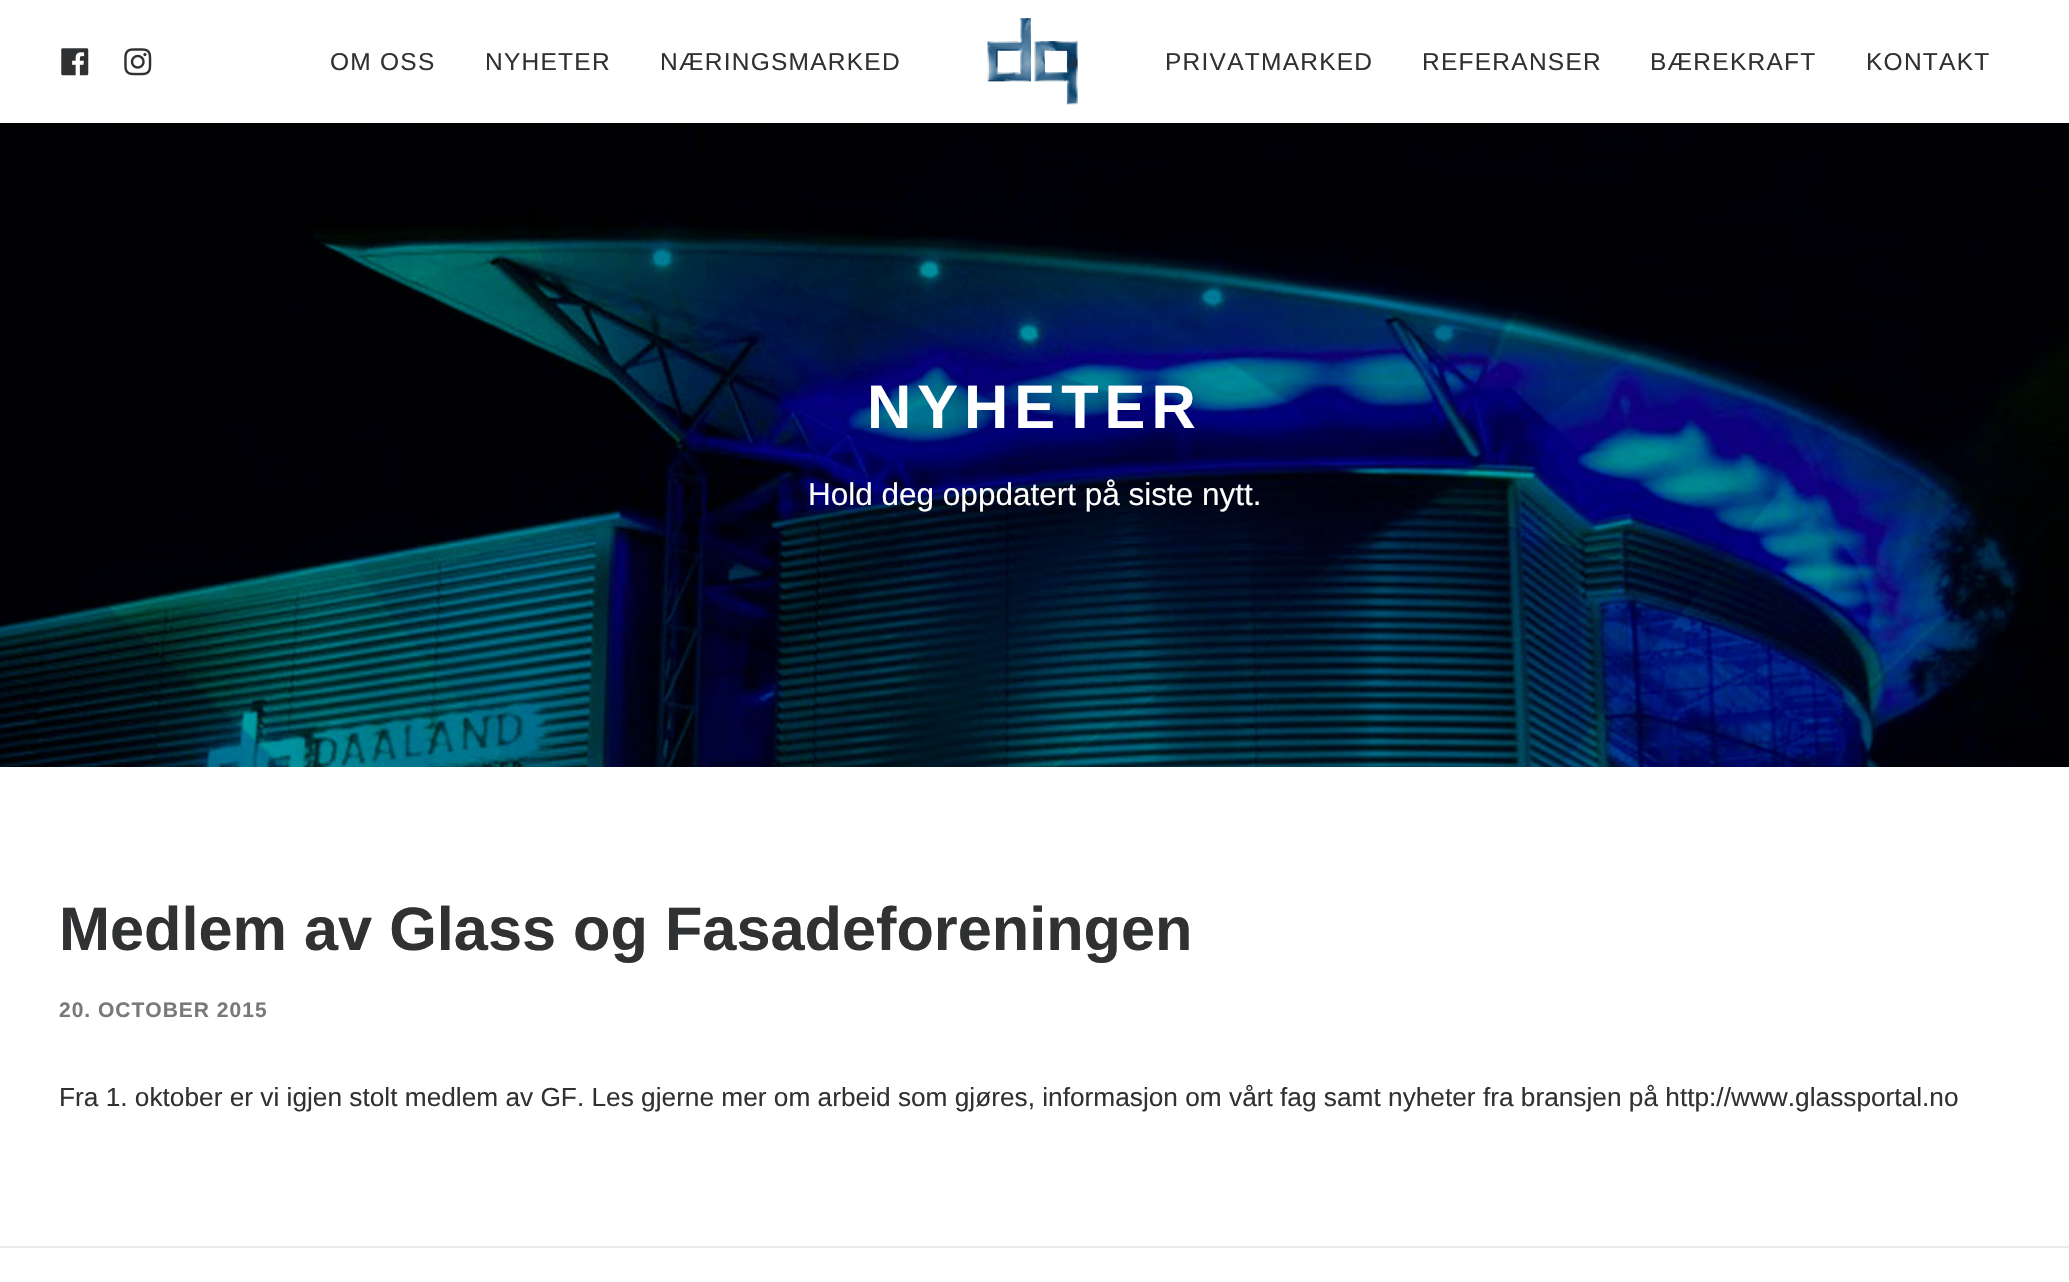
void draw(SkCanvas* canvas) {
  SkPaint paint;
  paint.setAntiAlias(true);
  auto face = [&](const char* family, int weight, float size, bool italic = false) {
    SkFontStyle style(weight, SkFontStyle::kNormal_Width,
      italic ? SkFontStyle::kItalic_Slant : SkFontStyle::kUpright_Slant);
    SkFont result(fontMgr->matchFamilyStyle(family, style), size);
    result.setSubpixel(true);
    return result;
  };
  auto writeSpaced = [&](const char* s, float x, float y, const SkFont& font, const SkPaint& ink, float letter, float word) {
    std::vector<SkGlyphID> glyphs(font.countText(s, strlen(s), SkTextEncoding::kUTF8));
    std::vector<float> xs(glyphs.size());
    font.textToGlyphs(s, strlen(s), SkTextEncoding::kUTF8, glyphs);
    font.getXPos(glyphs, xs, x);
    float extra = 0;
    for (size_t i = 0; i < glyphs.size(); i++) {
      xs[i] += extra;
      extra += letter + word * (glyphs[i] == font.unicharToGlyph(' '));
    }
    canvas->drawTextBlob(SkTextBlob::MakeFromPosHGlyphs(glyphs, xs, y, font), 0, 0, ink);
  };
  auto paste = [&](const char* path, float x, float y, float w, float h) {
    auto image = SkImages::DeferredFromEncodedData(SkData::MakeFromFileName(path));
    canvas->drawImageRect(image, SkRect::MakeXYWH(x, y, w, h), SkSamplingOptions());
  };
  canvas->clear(0xffffffff);
  paste("img/1.png", 61, 48, 28, 28);
  paste("img/2.png", 124, 48, 28, 28);
  paste("img/3.png", 987, 18, 91, 87);
  paste("img/4.png", 0, 123, 2069, 644);
  paint.setColor(0xffeaeaea);
  canvas->drawRect(SkRect::MakeXYWH(0, 1246, 2069, 2), paint);
  auto f0 = face("Liberation Sans", 400, 24.5f);
  paint.setColor(0xff303133);
  {
    const struct { const char* s; float x, y; } items[] = {
      {"OM OSS", 330, 70},
      {"NYHETER", 485, 70},
      {"NÆRINGSMARKED", 660, 70},
      {"PRIVATMARKED", 1165, 70},
      {"REFERANSER", 1422, 70},
      {"BÆREKRAFT", 1650, 70},
      {"KONTAKT", 1866, 70},
    };
    for (auto [s, x, y] : items) {
      writeSpaced(s, x, y, f0, paint, 1.25f, 0);
    }
  }
  auto f1 = face("Liberation Sans", 700, 61.25f);
  paint.setColor(0xffffffff);
  writeSpaced("NYHETER", 867, 428, f1, paint, 6, 0);
  auto f2 = face("Liberation Sans", 400, 31.5f);
  canvas->drawString("Hold deg oppdatert på siste nytt.", 808, 505, f2, paint);
  paint.setColor(0xff303133);
  canvas->drawString("Medlem av Glass og Fasadeforeningen", 59, 950, f1, paint);
  auto f3 = face("Liberation Sans", 700, 21);
  paint.setColor(0xff78797a);
  writeSpaced("20. OCTOBER 2015", 59, 1017, f3, paint, 1, 0);
  auto f4 = face("Liberation Sans", 400, 26.25f);
  paint.setColor(0xff303133);
  canvas->drawString("Fra 1. oktober er vi igjen stolt medlem av GF. Les gjerne mer om arbeid som gjøres, informasjon om vårt fag samt nyheter fra bransjen på http://www.glassportal.no", 59, 1106, f4, paint);
}
